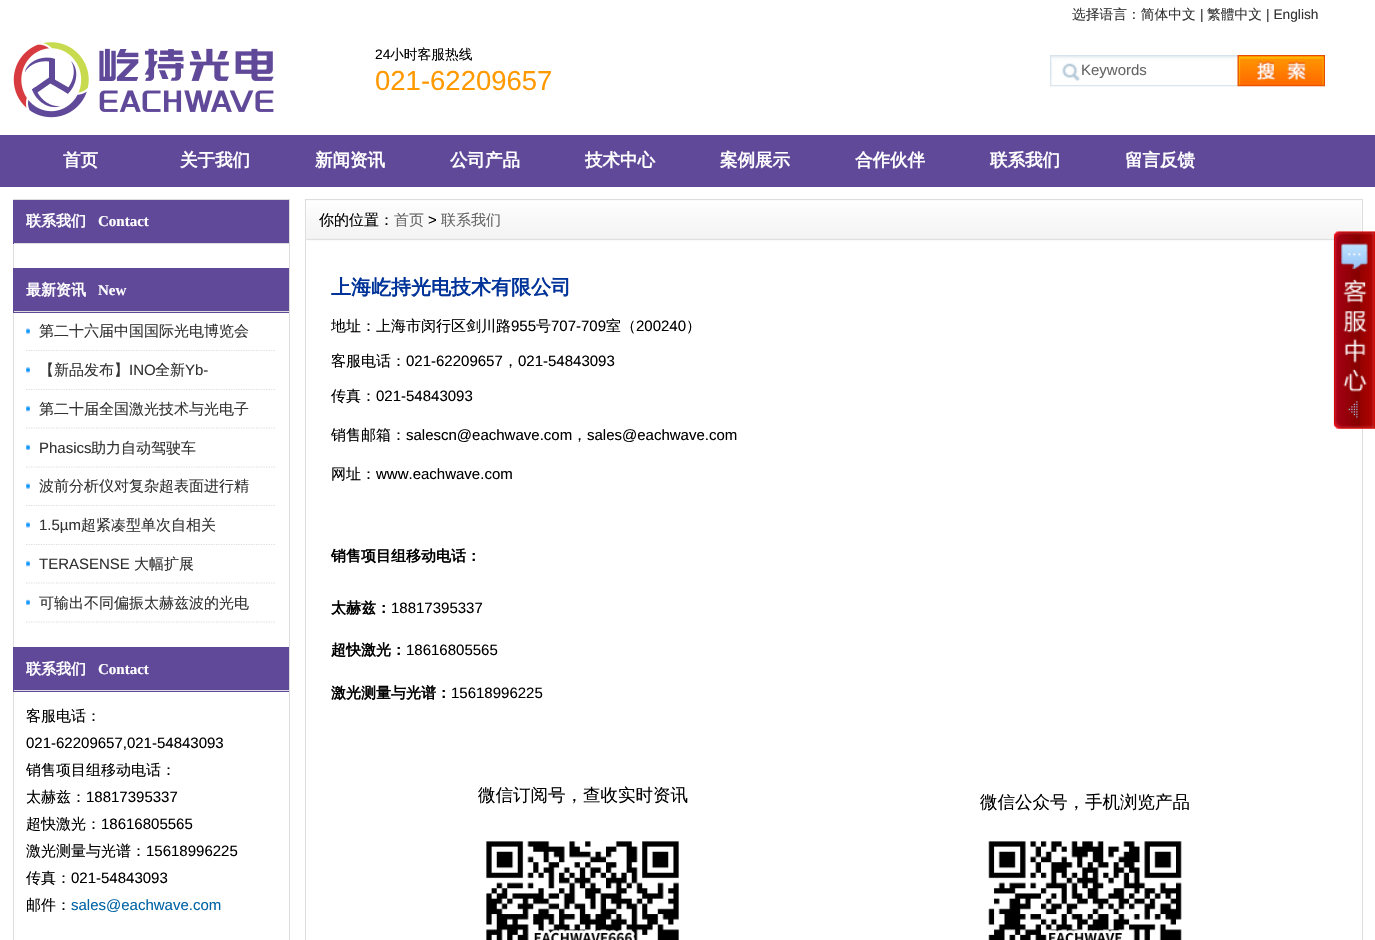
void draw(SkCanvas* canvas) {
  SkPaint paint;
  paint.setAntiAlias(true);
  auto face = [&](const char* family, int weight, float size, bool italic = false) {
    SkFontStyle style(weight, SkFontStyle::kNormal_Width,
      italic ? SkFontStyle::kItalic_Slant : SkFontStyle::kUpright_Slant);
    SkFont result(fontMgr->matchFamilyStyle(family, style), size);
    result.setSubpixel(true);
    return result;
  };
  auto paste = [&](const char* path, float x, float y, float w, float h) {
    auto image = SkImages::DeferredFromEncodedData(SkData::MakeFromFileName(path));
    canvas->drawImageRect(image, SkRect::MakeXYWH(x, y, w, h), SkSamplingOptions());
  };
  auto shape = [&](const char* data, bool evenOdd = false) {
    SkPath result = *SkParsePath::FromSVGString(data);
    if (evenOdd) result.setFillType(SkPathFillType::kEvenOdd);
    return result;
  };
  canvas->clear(0xffffffff);
  paste("img/1.png", 13, 42, 261, 76);
  paste("img/2.png", 1050, 55, 275, 32);
  paint.setColor(0xff614999);
  canvas->drawRect(SkRect::MakeXYWH(0, 135, 1375, 52), paint);
  paint.setStroke(true);
  paint.setStrokeWidth(1);
  paint.setColor(0xffdddddd);
  canvas->drawRect(SkRect::MakeXYWH(13.5f, 199.5f, 276, 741), paint);
  paint.setStroke(false);
  {
    const struct { float x, y, w, h; SkColor color; } items[] = {
      {13, 200, 276, 44, 0xff614999},
      {14, 243, 275, 1, 0xffdddddd},
      {13, 268, 276, 45, 0xff614999},
      {14, 311, 275, 1, 0xffdddddd},
    };
    for (auto [x, y, w, h, color] : items) {
      paint.setColor(color);
      canvas->drawRect(SkRect::MakeXYWH(x, y, w, h), paint);
    }
  }
  paste("img/3.png", 26, 327, 4, 7);
  paint.setStroke(true);
  paint.setStrokeWidth(1.2f);
  paint.setPathEffect(SkDashPathEffect::Make({{1.25f, 1.25f}}, 0));
  canvas->drawPath(shape("M26 350.5H276"), paint);
  paint.setPathEffect(nullptr);
  paste("img/4.png", 26, 366, 4, 7);
  paint.setPathEffect(SkDashPathEffect::Make({{1.25f, 1.25f}}, 0));
  canvas->drawPath(shape("M26 389.5H276"), paint);
  paint.setPathEffect(nullptr);
  paste("img/5.png", 26, 405, 4, 7);
  paint.setPathEffect(SkDashPathEffect::Make({{1.25f, 1.25f}}, 0));
  canvas->drawPath(shape("M26 428H276"), paint);
  paint.setPathEffect(nullptr);
  paste("img/6.png", 26, 444, 4, 6);
  paint.setPathEffect(SkDashPathEffect::Make({{1.25f, 1.25f}}, 0));
  canvas->drawPath(shape("M26 467H276"), paint);
  paint.setPathEffect(nullptr);
  paste("img/3.png", 26, 482, 4, 7);
  paint.setPathEffect(SkDashPathEffect::Make({{1.25f, 1.25f}}, 0));
  canvas->drawPath(shape("M26 505.5H276"), paint);
  paint.setPathEffect(nullptr);
  paste("img/4.png", 26, 521, 4, 7);
  paint.setPathEffect(SkDashPathEffect::Make({{1.25f, 1.25f}}, 0));
  canvas->drawPath(shape("M26 544.5H276"), paint);
  paint.setPathEffect(nullptr);
  paste("img/5.png", 26, 560, 4, 7);
  paint.setPathEffect(SkDashPathEffect::Make({{1.25f, 1.25f}}, 0));
  canvas->drawPath(shape("M26 583H276"), paint);
  paint.setPathEffect(nullptr);
  paste("img/6.png", 26, 599, 4, 6);
  paint.setPathEffect(SkDashPathEffect::Make({{1.25f, 1.25f}}, 0));
  canvas->drawPath(shape("M26 622H276"), paint);
  paint.setPathEffect(nullptr);
  paint.setStroke(false);
  paint.setColor(0xff614999);
  canvas->drawRect(SkRect::MakeXYWH(13, 647, 276, 45), paint);
  paint.setColor(0xffdddddd);
  canvas->drawRect(SkRect::MakeXYWH(14, 690, 275, 1), paint);
  paint.setStroke(true);
  paint.setStrokeWidth(1);
  canvas->drawRect(SkRect::MakeXYWH(305.5f, 199.5f, 1057, 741), paint);
  paste("img/7.png", 306, 200, 1056, 41);
  paste("img/8.png", 486, 841, 193, 99);
  paste("img/9.png", 988, 841, 194, 99);
  paste("img/10.png", 1333, 231, 42, 198);
  auto f0 = face("WenQuanYi Zen Hei", 500, 13.75f);
  paint.setStroke(false);
  paint.setColor(0xff333333);
  canvas->drawString("选择语言：简体中文", 1072, 19, f0, paint);
  auto f1 = face("Liberation Sans", 400, 13.75f);
  canvas->drawString("|", 1200, 19, f1, paint);
  canvas->drawString("繁體中文", 1207, 19, f0, paint);
  canvas->drawString("| English", 1266, 19, f1, paint);
  paint.setColor(0xff000000);
  canvas->drawString("24", 375, 59, f1, paint);
  canvas->drawString("小时客服热线", 390, 59, f0, paint);
  auto f2 = face("Liberation Sans", 400, 27.5f);
  paint.setColor(0xffff9900);
  canvas->drawString("021-62209657", 375, 90, f2, paint);
  auto f3 = face("Liberation Sans", 400, 15);
  paint.setColor(0xff666666);
  canvas->drawString("Keywords", 1081, 75, f3, paint);
  auto f4 = face("WenQuanYi Zen Hei", 700, 17.5f);
  paint.setColor(0xffffffff);
  {
    const struct { const char* s; float x, y; } items[] = {
      {"首页", 63, 166},
      {"关于我们", 180, 166},
      {"新闻资讯", 315, 166},
      {"公司产品", 450, 166},
      {"技术中心", 585, 166},
      {"案例展示", 720, 166},
      {"合作伙伴", 855, 166},
      {"联系我们", 990, 166},
      {"留言反馈", 1125, 166},
    };
    for (auto [s, x, y] : items) {
      canvas->drawString(s, x, y, f4, paint);
    }
  }
  auto f5 = face("WenQuanYi Zen Hei", 700, 15);
  canvas->drawString("联系我们", 26, 226, f5, paint);
  auto f6 = face("Liberation Serif", 700, 15);
  canvas->drawString("Contact", 98, 226, f6, paint);
  canvas->drawString("最新资讯", 26, 295, f5, paint);
  canvas->drawString("New", 98, 295, f6, paint);
  auto f7 = face("WenQuanYi Zen Hei", 500, 15);
  paint.setColor(0xff333333);
  canvas->drawString("第二十六届中国国际光电博览会", 39, 336, f7, paint);
  canvas->drawString("【新品发布】", 39, 375, f7, paint);
  canvas->drawString("INO", 129, 375, f3, paint);
  canvas->drawString("全新", 155, 375, f7, paint);
  canvas->drawString("Yb-", 185, 375, f3, paint);
  canvas->drawString("第二十届全国激光技术与光电子", 39, 414, f7, paint);
  canvas->drawString("Phasics", 39, 453, f3, paint);
  canvas->drawString("助力自动驾驶车", 91, 453, f7, paint);
  canvas->drawString("波前分析仪对复杂超表面进行精", 39, 491, f7, paint);
  canvas->drawString("1.5µm", 39, 530, f3, paint);
  canvas->drawString("超紧凑型单次自相关", 81, 530, f7, paint);
  canvas->drawString("TERASENSE", 39, 569, f3, paint);
  canvas->drawString("大幅扩展", 134, 569, f7, paint);
  canvas->drawString("可输出不同偏振太赫兹波的光电", 39, 608, f7, paint);
  paint.setColor(0xffffffff);
  canvas->drawString("联系我们", 26, 674, f5, paint);
  canvas->drawString("Contact", 98, 674, f6, paint);
  paint.setColor(0xff000000);
  canvas->drawString("客服电话：", 26, 721, f7, paint);
  canvas->drawString("021-62209657,021-54843093", 26, 748, f3, paint);
  canvas->drawString("销售项目组移动电话：", 26, 775, f7, paint);
  canvas->drawString("太赫兹：", 26, 802, f7, paint);
  canvas->drawString("18817395337", 86, 802, f3, paint);
  canvas->drawString("超快激光：", 26, 829, f7, paint);
  canvas->drawString("18616805565", 101, 829, f3, paint);
  canvas->drawString("激光测量与光谱：", 26, 856, f7, paint);
  canvas->drawString("15618996225", 146, 856, f3, paint);
  canvas->drawString("传真：", 26, 883, f7, paint);
  canvas->drawString("021-54843093", 71, 883, f3, paint);
  canvas->drawString("邮件：", 26, 910, f7, paint);
  paint.setColor(0xff0063a5);
  canvas->drawString("sales@eachwave.com", 71, 910, f3, paint);
  paint.setColor(0xff000000);
  canvas->drawString("你的位置：", 319, 225, f7, paint);
  paint.setColor(0xff666666);
  canvas->drawString("首页", 394, 225, f7, paint);
  paint.setColor(0xff000000);
  canvas->drawString(">", 428, 225, f3, paint);
  paint.setColor(0xff666666);
  canvas->drawString("联系我们", 441, 225, f7, paint);
  auto f8 = face("WenQuanYi Zen Hei", 700, 20);
  paint.setColor(0xff003399);
  canvas->drawString("上海屹持光电技术有限公司", 331, 294, f8, paint);
  paint.setColor(0xff000000);
  canvas->drawString("地址：上海市闵行区剑川路", 331, 331, f7, paint);
  canvas->drawString("955", 511, 331, f3, paint);
  canvas->drawString("号", 536, 331, f7, paint);
  canvas->drawString("707-709", 551, 331, f3, paint);
  canvas->drawString("室（", 606, 331, f7, paint);
  canvas->drawString("200240", 636, 331, f3, paint);
  canvas->drawString("）", 686, 331, f7, paint);
  canvas->drawString("客服电话：", 331, 366, f7, paint);
  canvas->drawString("021-62209657", 406, 366, f3, paint);
  canvas->drawString("，", 503, 366, f7, paint);
  canvas->drawString("021-54843093", 518, 366, f3, paint);
  canvas->drawString("传真：", 331, 401, f7, paint);
  canvas->drawString("021-54843093", 376, 401, f3, paint);
  canvas->drawString("销售邮箱：", 331, 440, f7, paint);
  canvas->drawString("salescn@eachwave.com", 406, 440, f3, paint);
  canvas->drawString("，", 572, 440, f7, paint);
  canvas->drawString("sales@eachwave.com", 587, 440, f3, paint);
  canvas->drawString("网址：", 331, 479, f7, paint);
  canvas->drawString("www.eachwave.com", 376, 479, f3, paint);
  canvas->drawString("销售项目组移动电话：", 331, 561, f5, paint);
  canvas->drawString("太赫兹：", 331, 613, f5, paint);
  canvas->drawString("18817395337", 391, 613, f3, paint);
  canvas->drawString("超快激光：", 331, 655, f5, paint);
  canvas->drawString("18616805565", 406, 655, f3, paint);
  canvas->drawString("激光测量与光谱：", 331, 698, f5, paint);
  canvas->drawString("15618996225", 451, 698, f3, paint);
  auto f9 = face("WenQuanYi Zen Hei", 500, 17.5f);
  canvas->drawString("微信订阅号，查收实时资讯", 478, 801, f9, paint);
  canvas->drawString("微信公众号，手机浏览产品", 980, 808, f9, paint);
}
